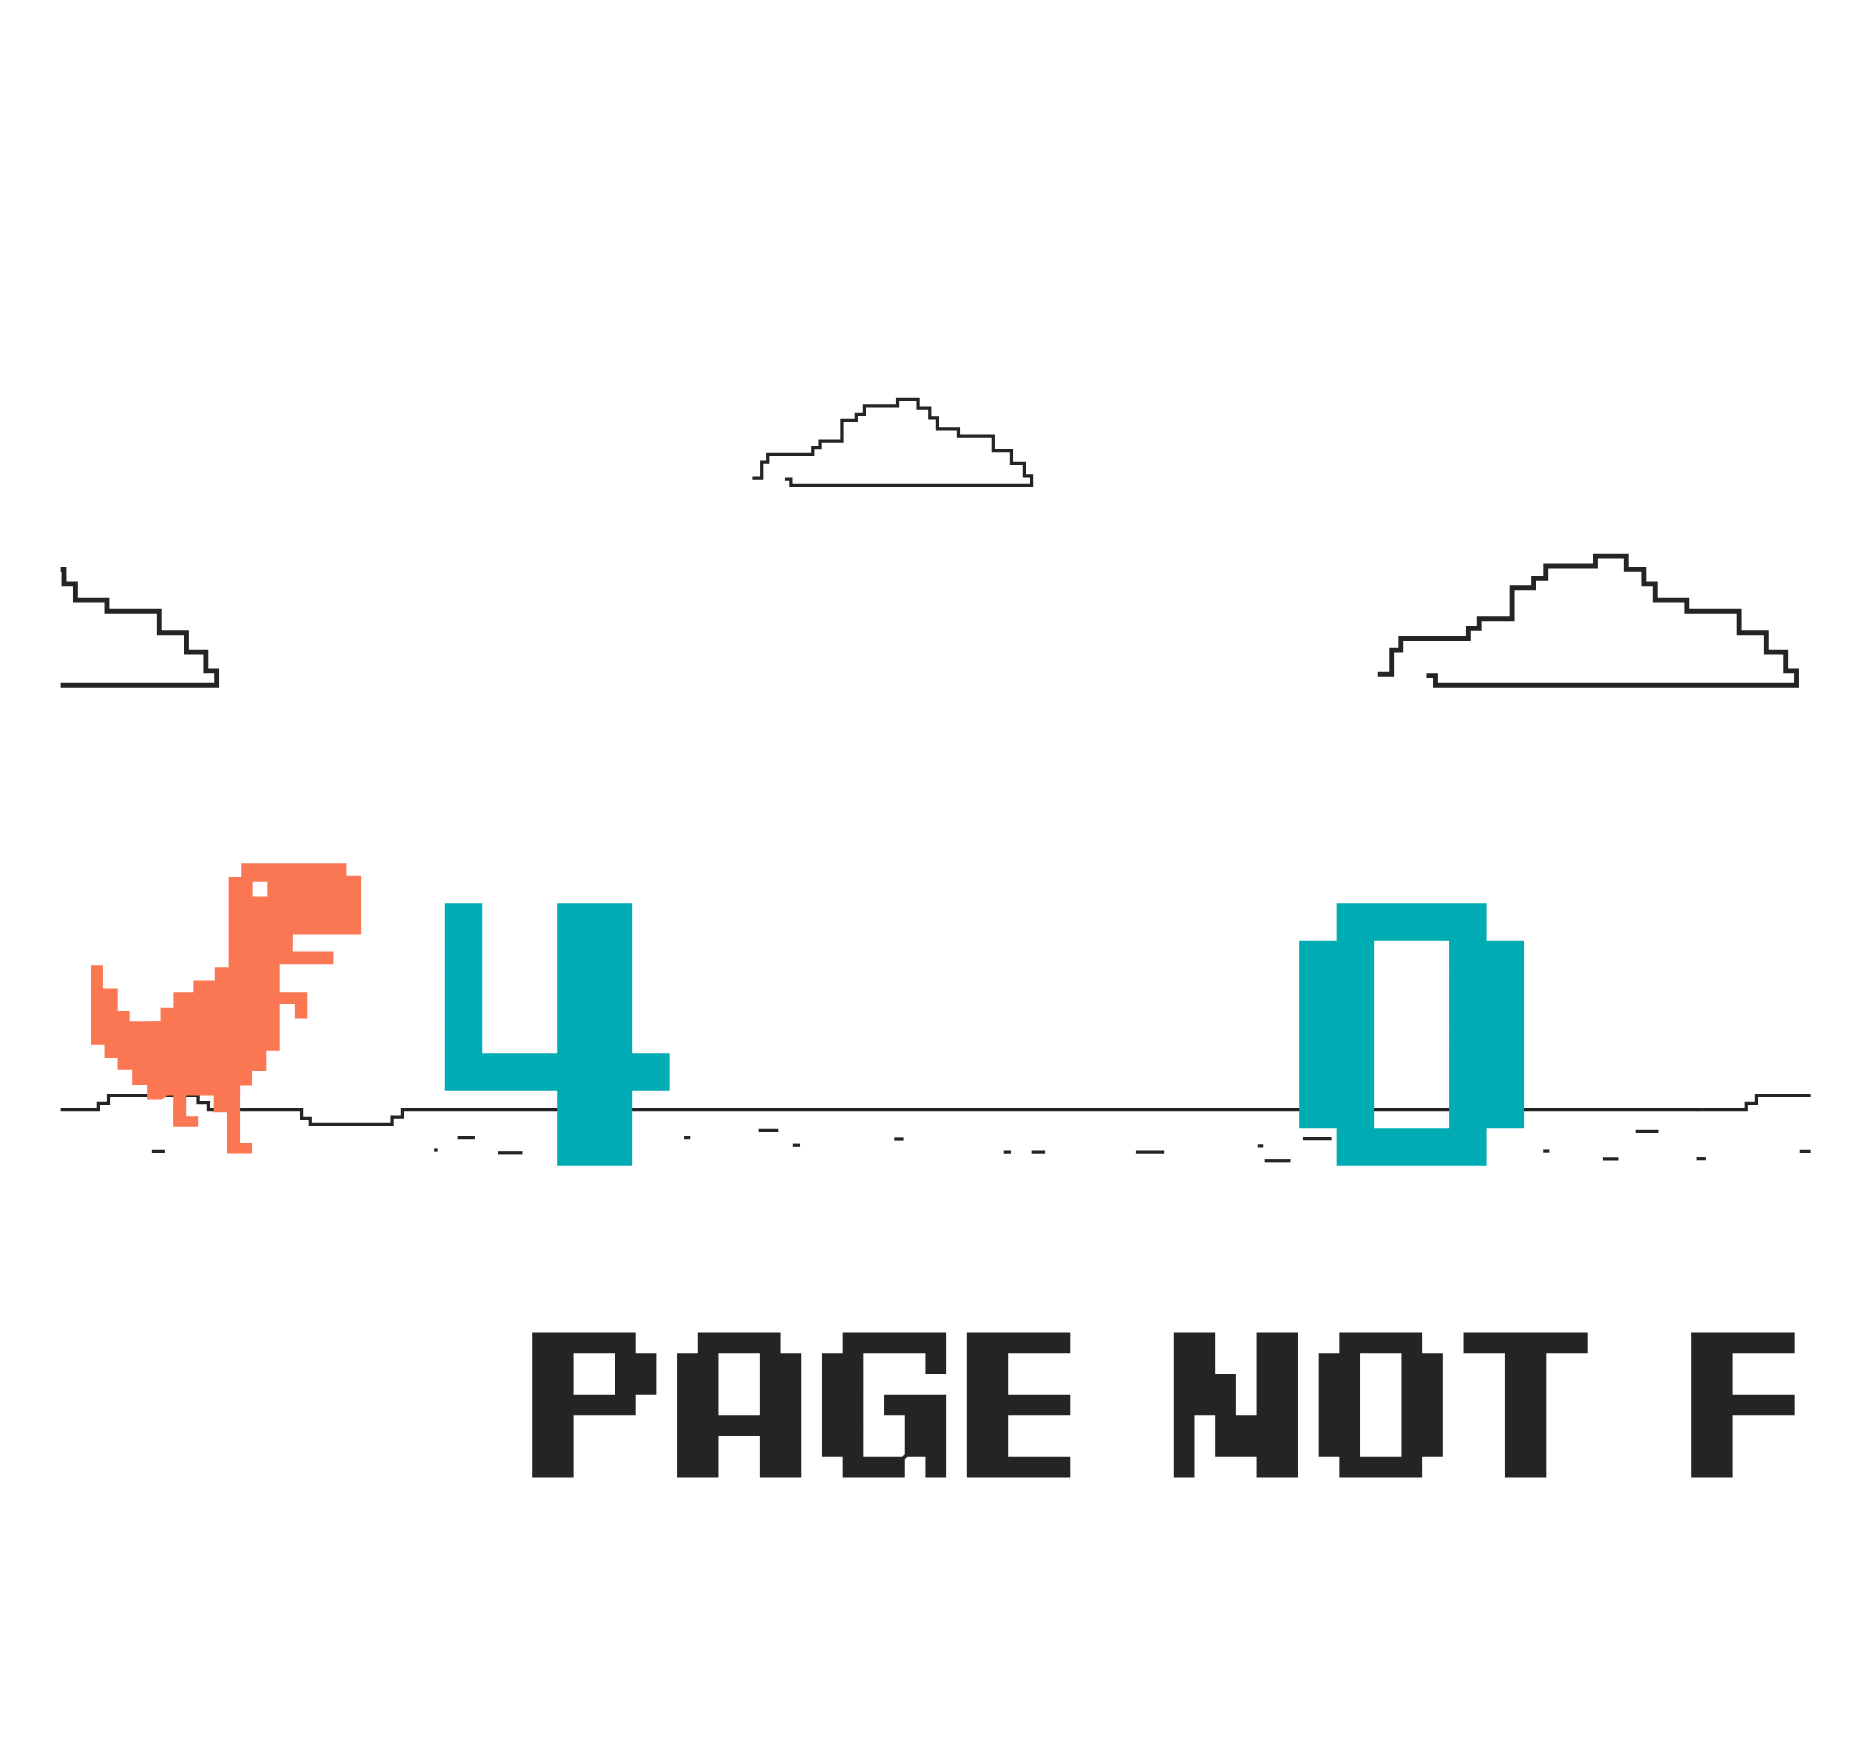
void draw(SkCanvas* canvas) {
  SkPaint paint;
  paint.setAntiAlias(true);
  auto paste = [&](const char* path, float x, float y, float w, float h) {
    auto image = SkImages::DeferredFromEncodedData(SkData::MakeFromFileName(path));
    canvas->drawImageRect(image, SkRect::MakeXYWH(x, y, w, h), SkSamplingOptions());
  };
  canvas->clear(0xffffffff);
  paste("img/1.png", 60, 397, 1751, 1081);
}
